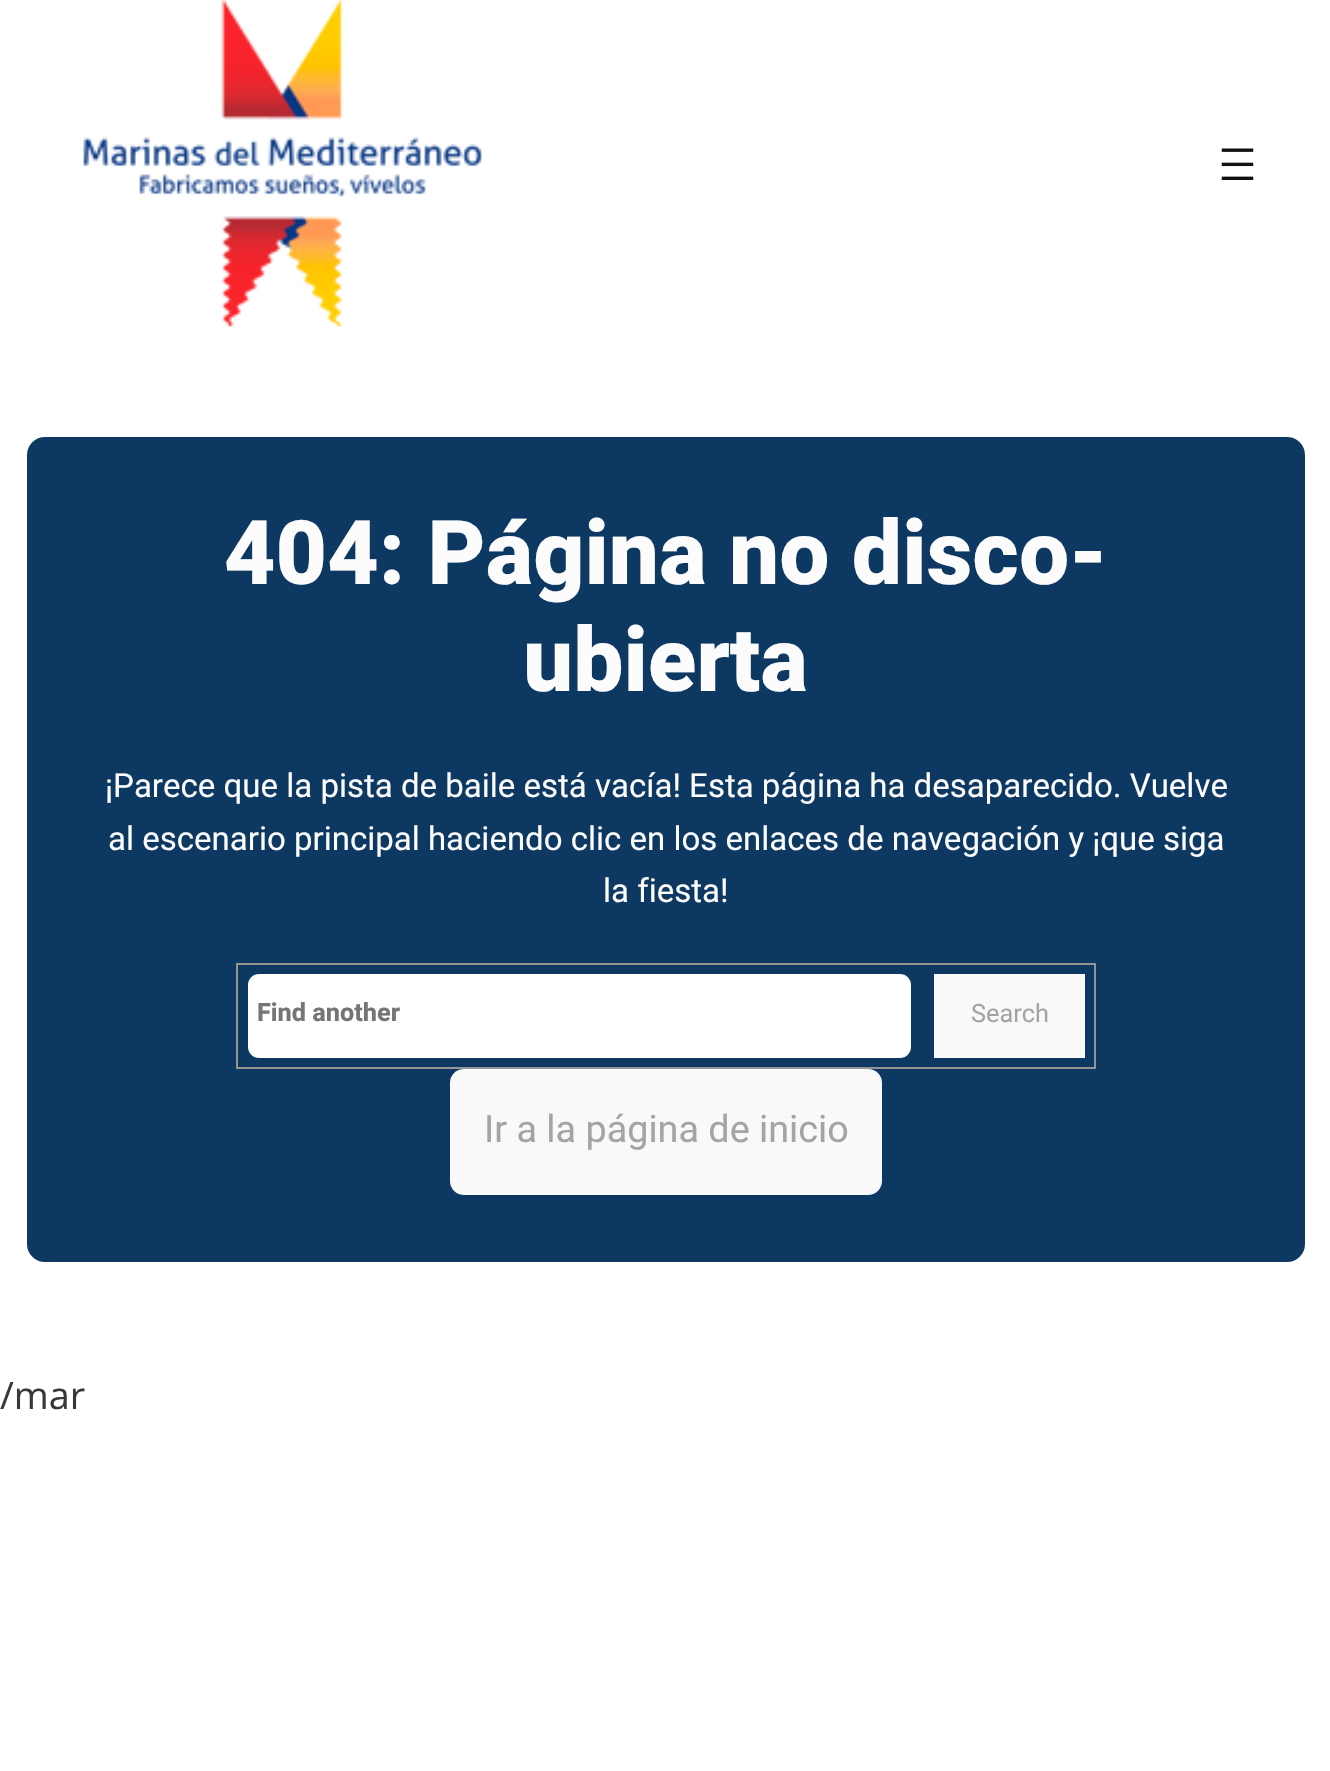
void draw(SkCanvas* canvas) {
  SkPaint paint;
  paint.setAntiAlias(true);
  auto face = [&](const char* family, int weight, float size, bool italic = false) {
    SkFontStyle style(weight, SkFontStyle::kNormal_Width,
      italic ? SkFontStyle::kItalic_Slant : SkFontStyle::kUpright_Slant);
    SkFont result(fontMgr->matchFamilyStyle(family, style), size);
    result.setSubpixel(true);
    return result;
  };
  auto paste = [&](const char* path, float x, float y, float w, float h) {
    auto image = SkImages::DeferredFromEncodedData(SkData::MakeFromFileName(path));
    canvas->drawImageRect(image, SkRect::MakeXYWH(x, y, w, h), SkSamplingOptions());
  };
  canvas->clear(0xffffffff);
  paste("img/1.png", 83, 0, 399, 327);
  paste("img/2.png", 1221, 148, 33, 32);
  paint.setColor(0xff0d3861);
  canvas->drawRoundRect(SkRect::MakeXYWH(27, 437, 1278, 825), 18, 18, paint);
  paint.setStroke(true);
  paint.setStrokeWidth(2);
  paint.setColor(0xff949494);
  canvas->drawRect(SkRect::MakeXYWH(237, 964, 858, 104), paint);
  paint.setStroke(false);
  paint.setColor(0xffffffff);
  canvas->drawRoundRect(SkRect::MakeXYWH(248, 974, 663, 84), 11, 11, paint);
  paint.setColor(0xfff9f9f9);
  canvas->drawRect(SkRect::MakeXYWH(934, 974, 151, 84), paint);
  canvas->drawRoundRect(SkRect::MakeXYWH(450, 1069, 432, 126), 14, 14, paint);
  auto f0 = face("Heebo", 800, 89.25f);
  paint.setColor(0xfffcfcfc);
  canvas->drawString("404: Página no disco-", 224, 584, f0, paint);
  canvas->drawString("ubierta", 523, 691, f0, paint);
  auto f1 = face("Heebo", 400, 33);
  {
    const struct { const char* s; float x, y; } items[] = {
      {"¡Parece que la pista de baile está vacía! Esta página ha desaparecido. Vuelve", 105, 797},
      {"al escenario principal haciendo clic en los enlaces de navegación y ¡que siga", 108, 850},
      {"la fiesta!", 603, 902},
    };
    for (auto [s, x, y] : items) {
      canvas->drawString(s, x, y, f1, paint);
    }
  }
  auto f2 = face("Heebo", 700, 25.25f);
  paint.setColor(0xff757575);
  canvas->drawString("Find another", 257, 1021, f2, paint);
  auto f3 = face("Heebo", 400, 25.25f);
  paint.setColor(0xffa4a4a4);
  canvas->drawString("Search", 971, 1022, f3, paint);
  auto f4 = face("Heebo", 400, 37.75f);
  canvas->drawString("Ir a la página de inicio", 484, 1142, f4, paint);
  auto f5 = face("Open Sans", 400, 37.75f);
  paint.setColor(0xff383838);
  canvas->drawString("/mar", 0, 1409, f5, paint);
}
